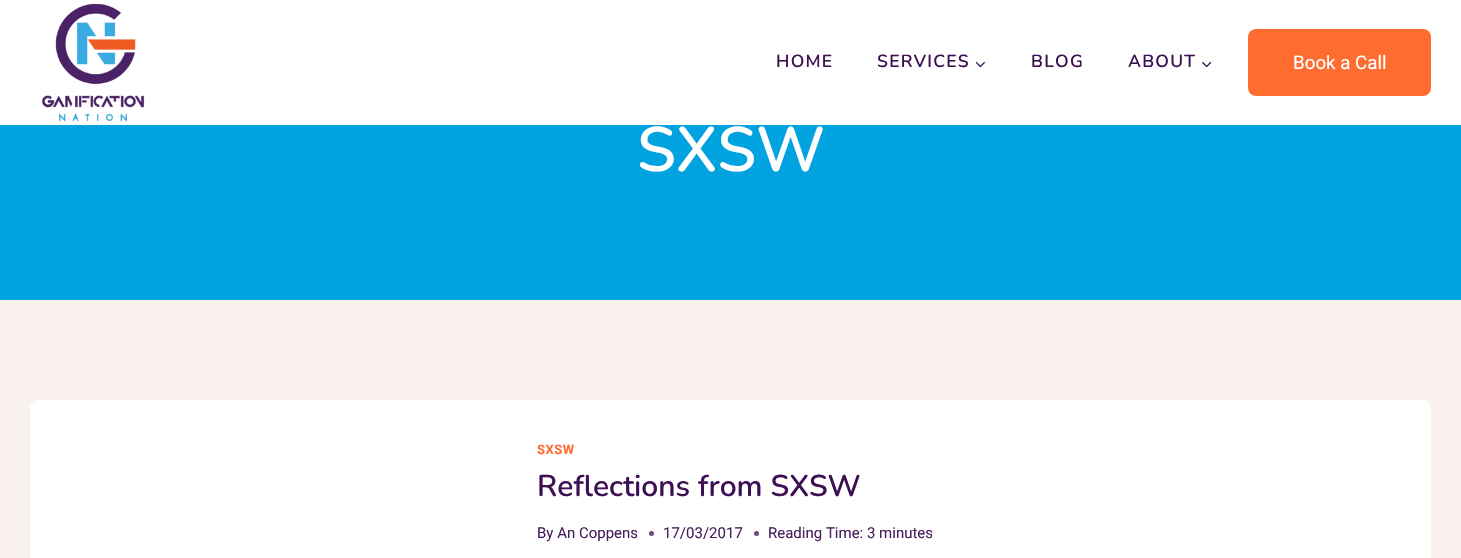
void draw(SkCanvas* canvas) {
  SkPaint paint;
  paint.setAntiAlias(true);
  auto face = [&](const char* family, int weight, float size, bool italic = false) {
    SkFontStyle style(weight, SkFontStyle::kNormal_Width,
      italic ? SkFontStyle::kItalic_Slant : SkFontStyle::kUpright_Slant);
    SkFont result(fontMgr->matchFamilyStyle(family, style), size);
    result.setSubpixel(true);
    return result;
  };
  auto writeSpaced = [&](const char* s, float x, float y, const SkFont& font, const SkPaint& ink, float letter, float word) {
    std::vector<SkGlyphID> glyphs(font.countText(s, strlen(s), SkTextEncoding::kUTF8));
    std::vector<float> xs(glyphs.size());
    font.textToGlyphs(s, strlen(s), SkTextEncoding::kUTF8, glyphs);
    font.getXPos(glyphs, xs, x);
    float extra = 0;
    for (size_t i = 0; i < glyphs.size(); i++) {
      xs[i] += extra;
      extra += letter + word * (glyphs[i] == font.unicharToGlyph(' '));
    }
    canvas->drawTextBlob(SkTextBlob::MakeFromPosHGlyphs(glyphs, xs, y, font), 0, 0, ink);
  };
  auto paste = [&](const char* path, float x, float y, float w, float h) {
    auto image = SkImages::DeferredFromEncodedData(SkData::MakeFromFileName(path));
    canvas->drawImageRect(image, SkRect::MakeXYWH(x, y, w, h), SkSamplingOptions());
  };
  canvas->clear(0xfff8f1ee);
  paint.setColor(0xffffffff);
  canvas->drawRect(SkRect::MakeXYWH(0, 0, 1461, 125), paint);
  paste("img/1.png", 42, 3, 103, 119);
  paste("img/2.png", 975, 62, 10, 6);
  paste("img/3.png", 1202, 62, 10, 6);
  paint.setColor(0xffff6c2f);
  canvas->drawRoundRect(SkRect::MakeXYWH(1248, 29, 183, 67), 8, 8, paint);
  paint.setColor(0xff00a3e0);
  canvas->drawRect(SkRect::MakeXYWH(0, 125, 1461, 175), paint);
  paint.setColor(0xffffffff);
  canvas->drawRoundRect(SkRect::MakeXYWH(30, 400, 1401, 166), 8, 8, paint);
  paint.setColor(0xff6c4b7d);
  canvas->drawCircle(651.5f, 533.5f, 2.5f, paint);
  canvas->drawCircle(756.5f, 533.5f, 2.5f, paint);
  auto f0 = face("Nunito", 200, 17.5f);
  paint.setColor(0xff3c1053);
  {
    const struct { const char* s; float x, y; } items[] = {
      {"HOME", 776, 67},
      {"SERVICES", 877, 67},
      {"BLOG", 1031, 67},
      {"ABOUT", 1128, 67},
    };
    for (auto [s, x, y] : items) {
      writeSpaced(s, x, y, f0, paint, 1.25f, 0);
    }
  }
  auto f1 = face("Roboto", 400, 18.75f);
  paint.setColor(0xffffffff);
  canvas->drawString("Book a Call", 1293, 69, f1, paint);
  auto f2 = face("Nunito", 200, 62.5f);
  canvas->drawString("SXSW", 637, 171, f2, paint);
  auto f3 = face("Roboto", 700, 13);
  paint.setColor(0xffff6c2f);
  writeSpaced("SXSW", 537, 454, f3, paint, 0.5f, 0);
  auto f4 = face("Nunito", 200, 30);
  paint.setColor(0xff3c1053);
  canvas->drawString("Reflections from SXSW", 537, 496, f4, paint);
  auto f5 = face("Roboto", 400, 15);
  paint.setColor(0xff481e5d);
  {
    const struct { const char* s; float x, y; } items[] = {
      {"By An Coppens", 537, 538},
      {"17/03/2017", 663, 538},
      {"Reading Time: 3 minutes", 768, 538},
    };
    for (auto [s, x, y] : items) {
      canvas->drawString(s, x, y, f5, paint);
    }
  }
}
